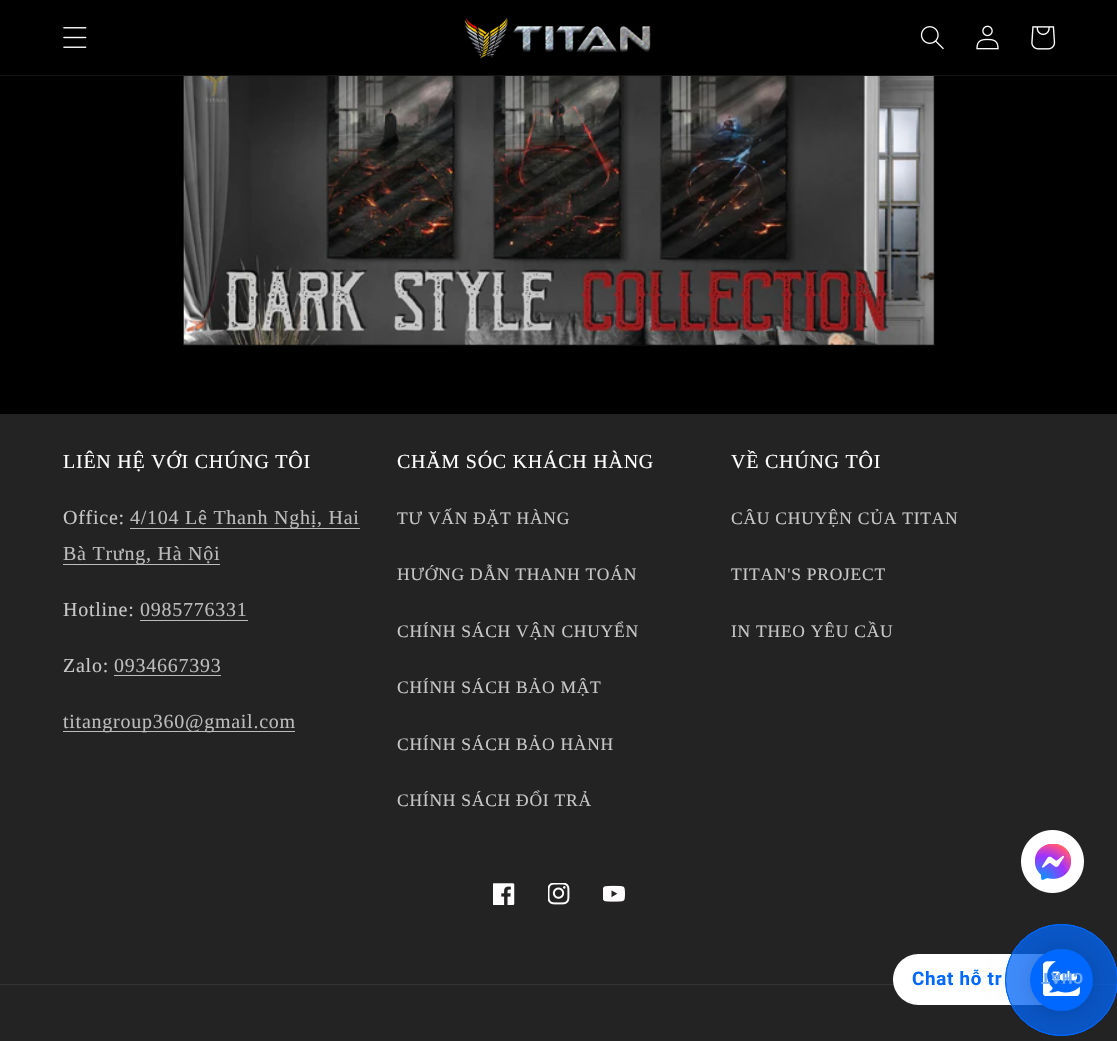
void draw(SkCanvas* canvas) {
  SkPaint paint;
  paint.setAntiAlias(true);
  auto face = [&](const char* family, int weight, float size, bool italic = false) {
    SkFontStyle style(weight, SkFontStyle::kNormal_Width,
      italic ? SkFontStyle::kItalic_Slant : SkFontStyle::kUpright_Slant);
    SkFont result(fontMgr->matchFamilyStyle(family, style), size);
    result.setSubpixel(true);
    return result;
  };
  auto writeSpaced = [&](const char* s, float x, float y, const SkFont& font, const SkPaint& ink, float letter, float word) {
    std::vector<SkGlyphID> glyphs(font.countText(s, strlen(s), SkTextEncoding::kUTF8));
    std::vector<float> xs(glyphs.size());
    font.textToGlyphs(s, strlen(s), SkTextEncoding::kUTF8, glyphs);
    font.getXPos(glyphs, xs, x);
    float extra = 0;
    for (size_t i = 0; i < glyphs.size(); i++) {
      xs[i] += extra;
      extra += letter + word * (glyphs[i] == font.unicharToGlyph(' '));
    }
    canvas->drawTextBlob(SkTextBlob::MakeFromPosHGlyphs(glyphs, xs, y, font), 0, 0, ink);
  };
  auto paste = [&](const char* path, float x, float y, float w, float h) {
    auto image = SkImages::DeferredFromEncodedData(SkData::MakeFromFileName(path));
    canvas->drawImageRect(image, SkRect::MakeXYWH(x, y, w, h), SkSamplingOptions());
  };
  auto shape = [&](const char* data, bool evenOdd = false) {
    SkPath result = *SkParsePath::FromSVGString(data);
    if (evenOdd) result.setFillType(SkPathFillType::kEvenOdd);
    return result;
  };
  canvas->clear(0xff000000);
  paint.setStroke(true);
  paint.setStrokeWidth(1);
  paint.setColor(0xff0d0d0d);
  canvas->drawRect(SkRect::MakeXYWH(183.5f, 58.5f, 751, 287), paint);
  paint.setStroke(false);
  paint.setColor(0xff000000);
  canvas->drawRect(SkRect::MakeXYWH(183, 58, 752, 17), paint);
  paint.setColor(0xff141414);
  canvas->drawRect(SkRect::MakeXYWH(0, 75, 1117, 1), paint);
  paste("img/1.png", 63, 27, 24, 21);
  paste("img/2.png", 464, 17, 187, 42);
  paste("img/3.png", 920, 26, 24, 24);
  paste("img/4.png", 976, 25, 23, 25);
  paste("img/5.png", 1031, 26, 25, 24);
  paste("img/6.png", 183, 76, 751, 269);
  {
    const struct { float x, y, w, h; SkColor color; } items[] = {
      {0, 414, 1117, 627, 0xff232323},
      {130, 528, 230, 1, 0xffbdbcbc},
      {63, 564, 157, 1, 0xffbdbcbc},
      {140, 620, 108, 1, 0xffbdbcbc},
      {114, 675, 107, 1, 0xffbdbcbc},
      {63, 731, 232, 1, 0xffbdbcbc},
    };
    for (auto [x, y, w, h, color] : items) {
      paint.setColor(color);
      canvas->drawRect(SkRect::MakeXYWH(x, y, w, h), paint);
    }
  }
  paste("img/7.png", 493, 883, 22, 22);
  paste("img/8.png", 548, 883, 22, 22);
  paste("img/9.png", 603, 885, 22, 17);
  paint.setColor(0xff353434);
  canvas->drawRect(SkRect::MakeXYWH(0, 984, 1117, 1), paint);
  paint.setColor(0xffffffff);
  canvas->drawPath(shape("M918.5 954H1045V1005H918.5C904.5 1005 893 993.5 893 979.5C893 965.5 904.5 954 918.5 954Z"), paint);
  paint.setColor(0x800068ff);
  canvas->drawRoundRect(SkRect::MakeXYWH(1005.5f, 924.5f, 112, 111), 55.5f, 55.5f, paint);
  paint.setStroke(true);
  paint.setColor(0xff0068ff);
  canvas->drawRoundRect(SkRect::MakeXYWH(1005.5f, 924.5f, 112, 111), 55.5f, 55.5f, paint);
  paint.setStroke(false);
  paint.setColor(0x800068ff);
  canvas->drawRoundRect(SkRect::MakeXYWH(1005.5f, 924.5f, 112, 111), 55.5f, 55.5f, paint);
  paint.setStroke(true);
  paint.setColor(0xff0068ff);
  canvas->drawRoundRect(SkRect::MakeXYWH(1005.5f, 924.5f, 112, 111), 55.5f, 55.5f, paint);
  paint.setStroke(false);
  paint.setColor(0x29000000);
  paint.setMaskFilter(SkMaskFilter::MakeBlur(kNormal_SkBlurStyle, 20));
  canvas->drawRoundRect(SkRect::MakeXYWH(1030, 951, 63, 63), 31.5f, 31.5f, paint);
  paint.setMaskFilter(nullptr);
  paste("img/10.png", 1021, 830, 63, 63);
  paint.setColor(0x0f000000);
  paint.setMaskFilter(SkMaskFilter::MakeBlur(kNormal_SkBlurStyle, 4));
  canvas->drawRoundRect(SkRect::MakeXYWH(1030, 950, 63, 63), 31.5f, 31.5f, paint);
  paint.setMaskFilter(nullptr);
  paint.setColor(0xff0068ff);
  canvas->drawRoundRect(SkRect::MakeXYWH(1030, 949, 63, 62), 31, 31, paint);
  paste("img/11.png", 1043, 961, 37, 35);
  auto f0 = face("Liberation Serif", 400, 20);
  paint.setColor(0xfffffdfd);
  writeSpaced("LIÊN HỆ VỚI CHÚNG TÔI", 63, 468, f0, paint, 0.75f, 0);
  paint.setColor(0xffc8c7c7);
  writeSpaced("Office:", 63, 524, f0, paint, 0.75f, 0);
  paint.setColor(0xffbdbcbc);
  writeSpaced("4/104 Lê Thanh Nghị, Hai", 130, 524, f0, paint, 0.75f, 0);
  writeSpaced("Bà Trưng, Hà Nội", 63, 560, f0, paint, 0.75f, 0);
  paint.setColor(0xffc8c7c7);
  writeSpaced("Hotline:", 63, 616, f0, paint, 0.75f, 0);
  paint.setColor(0xffbdbcbc);
  writeSpaced("0985776331", 140, 616, f0, paint, 0.75f, 0);
  paint.setColor(0xffc8c7c7);
  writeSpaced("Zalo:", 63, 672, f0, paint, 0.75f, 0);
  paint.setColor(0xffbdbcbc);
  writeSpaced("0934667393", 114, 672, f0, paint, 0.75f, 0);
  writeSpaced("titangroup360@gmail.com", 63, 728, f0, paint, 0.75f, 0);
  paint.setColor(0xfffffdfd);
  writeSpaced("CHĂM SÓC KHÁCH HÀNG", 397, 468, f0, paint, 0.75f, 0);
  auto f1 = face("Liberation Serif", 400, 17.5f);
  paint.setColor(0xffc8c7c7);
  {
    const struct { const char* s; float x, y; } items[] = {
      {"TƯ VẤN ĐẶT HÀNG", 397, 524},
      {"HƯỚNG DẪN THANH TOÁN", 397, 580},
      {"CHÍNH SÁCH VẬN CHUYỂN", 397, 637},
      {"CHÍNH SÁCH BẢO MẬT", 397, 693},
      {"CHÍNH SÁCH BẢO HÀNH", 397, 750},
      {"CHÍNH SÁCH ĐỔI TRẢ", 397, 806},
    };
    for (auto [s, x, y] : items) {
      writeSpaced(s, x, y, f1, paint, 0.75f, 0);
    }
  }
  paint.setColor(0xfffffdfd);
  writeSpaced("VỀ CHÚNG TÔI", 731, 468, f0, paint, 0.75f, 0);
  paint.setColor(0xffc8c7c7);
  {
    const struct { const char* s; float x, y; } items[] = {
      {"CÂU CHUYỆN CỦA TITAN", 731, 524},
      {"TITAN'S PROJECT", 731, 580},
      {"IN THEO YÊU CẦU", 731, 637},
    };
    for (auto [s, x, y] : items) {
      writeSpaced(s, x, y, f1, paint, 0.75f, 0);
    }
  }
  auto f2 = face("Roboto", 700, 18.75f);
  paint.setColor(0xff0068ff);
  writeSpaced("Chat hỗ tr", 912, 985, f2, paint, 0.75f, 0);
  auto f3 = face("Roboto", 700, 15);
  paint.setColor(0xff6ea9ff);
  canvas->save();
  canvas->rotate(180, 1083, 973);
  writeSpaced("CHAT", 1083, 973, f3, paint, 0.75f, 0);
  canvas->restore();
}
